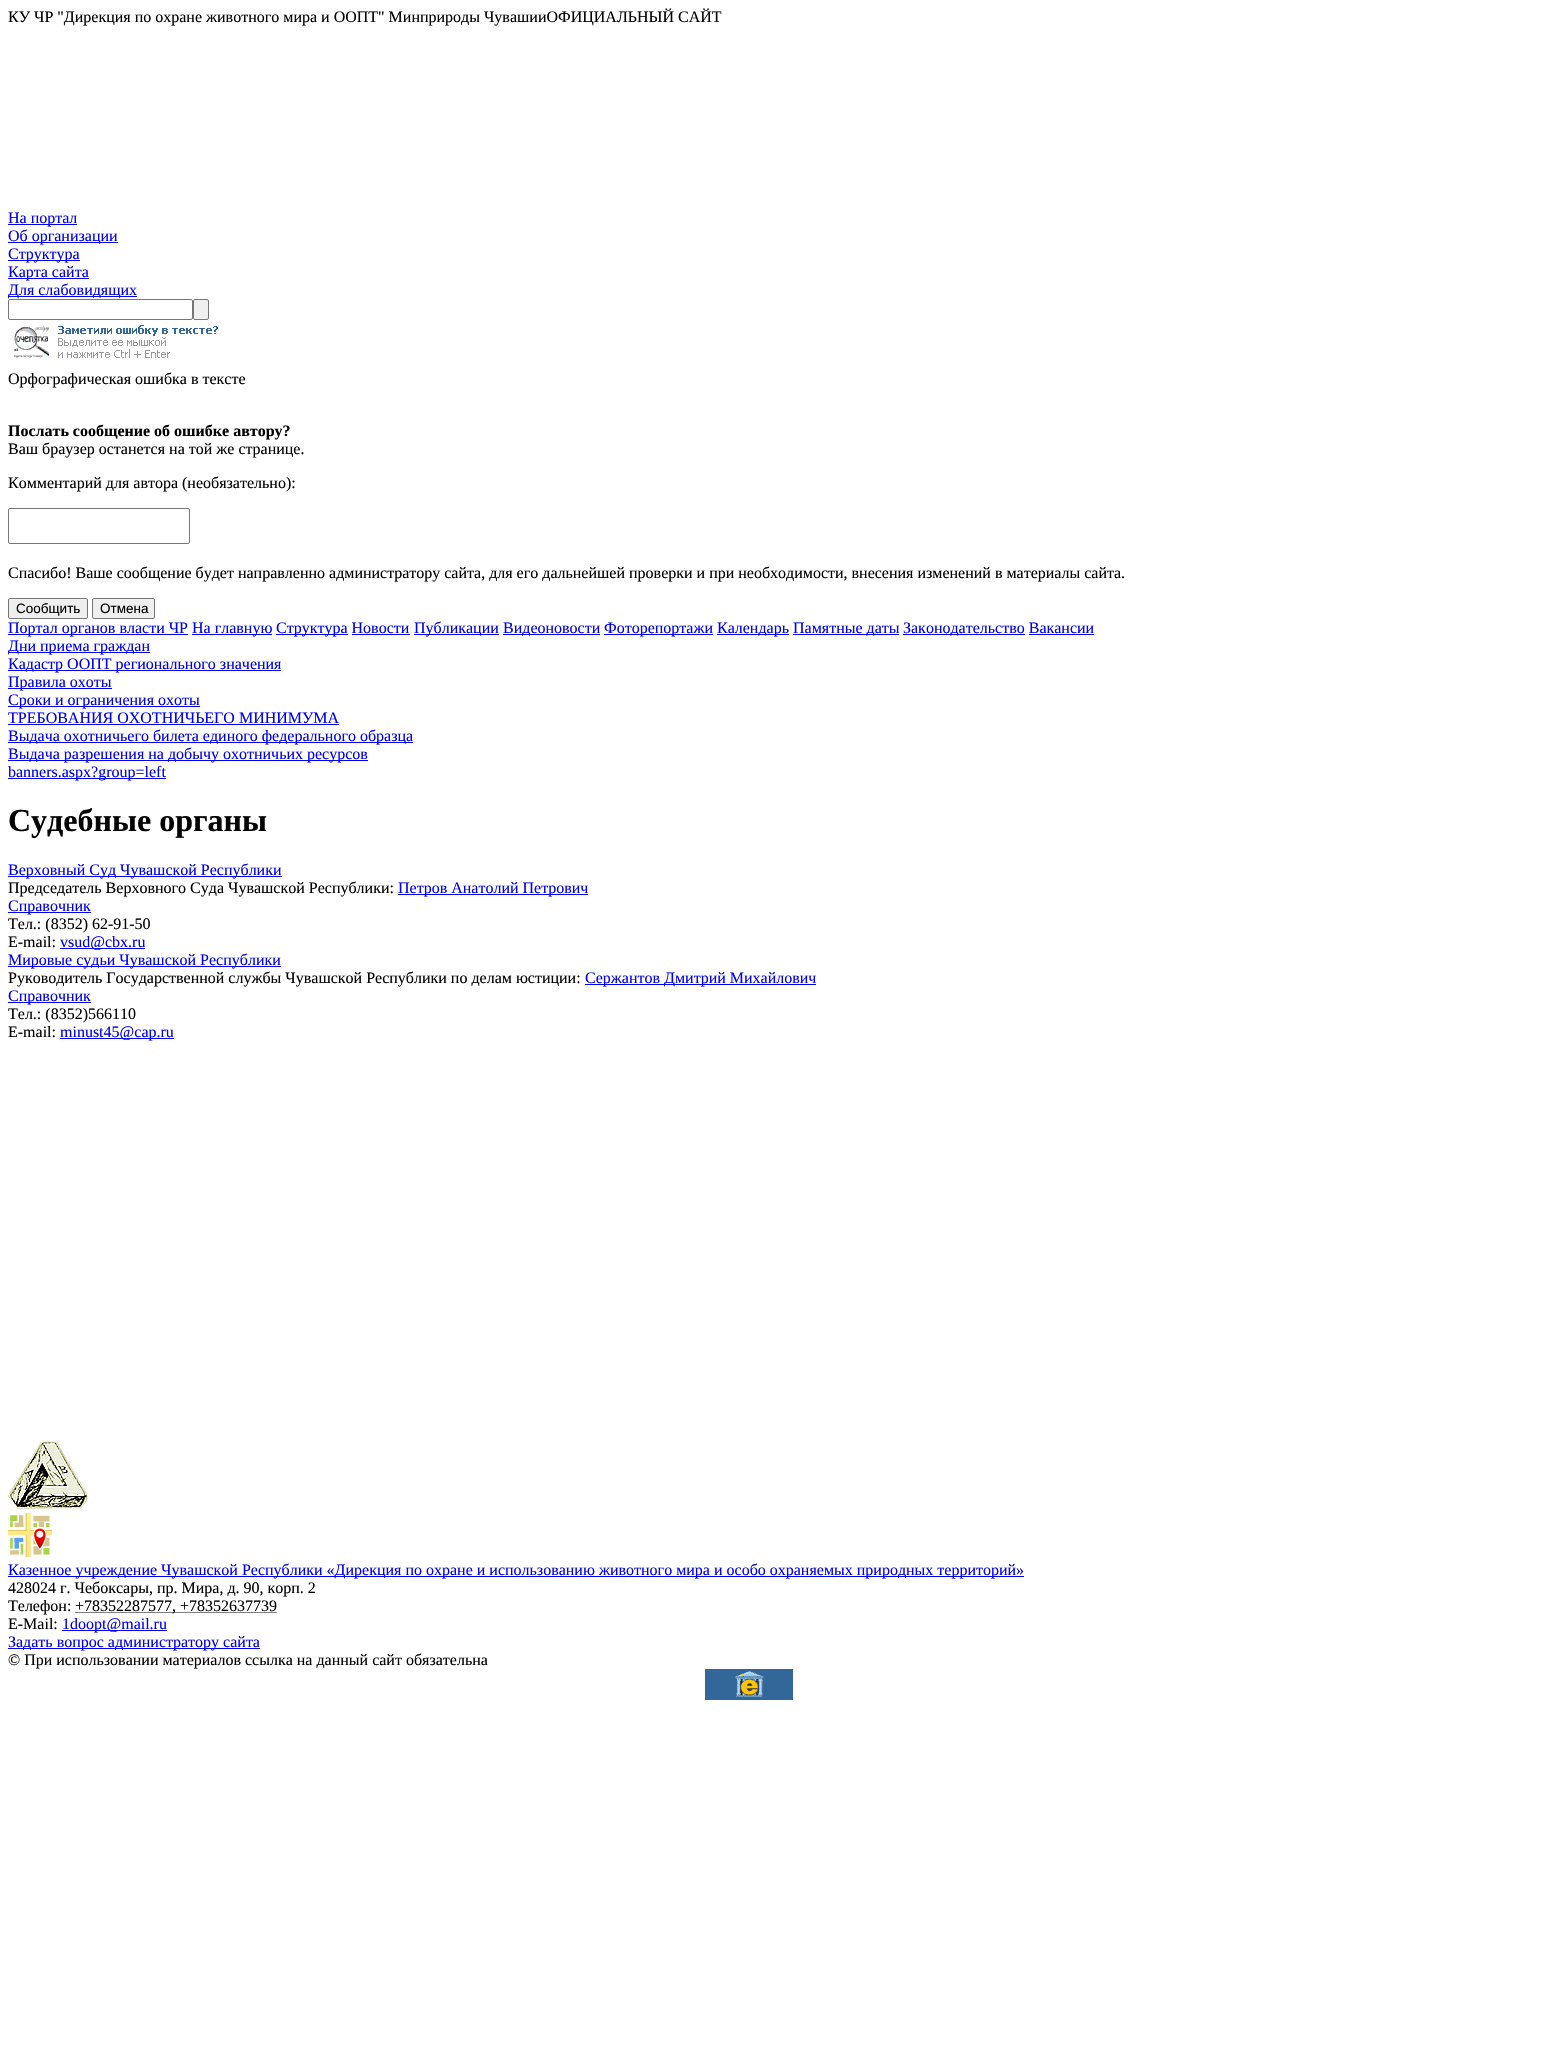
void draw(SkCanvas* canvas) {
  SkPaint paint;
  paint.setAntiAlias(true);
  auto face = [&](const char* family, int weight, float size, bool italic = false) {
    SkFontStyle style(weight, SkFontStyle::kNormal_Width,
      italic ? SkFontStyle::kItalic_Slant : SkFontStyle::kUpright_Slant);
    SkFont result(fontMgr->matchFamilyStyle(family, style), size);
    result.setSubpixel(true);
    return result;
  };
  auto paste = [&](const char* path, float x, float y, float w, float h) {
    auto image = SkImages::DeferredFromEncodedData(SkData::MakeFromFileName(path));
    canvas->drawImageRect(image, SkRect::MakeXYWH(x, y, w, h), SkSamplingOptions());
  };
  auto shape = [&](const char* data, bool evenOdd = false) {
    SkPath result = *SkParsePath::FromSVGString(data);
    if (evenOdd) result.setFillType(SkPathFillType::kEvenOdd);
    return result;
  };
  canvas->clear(0xffffffff);
  {
    const struct { float x, y, w, h; SkColor color; } items[] = {
      {8, 224, 69, 1, 0xff0000ee},
      {8, 242, 110, 1, 0xff0000ee},
      {8, 260, 72, 1, 0xff0000ee},
      {8, 278, 81, 1, 0xff0000ee},
      {8, 296, 129, 1, 0xff0000ee},
    };
    for (auto [x, y, w, h, color] : items) {
      paint.setColor(color);
      canvas->drawRect(SkRect::MakeXYWH(x, y, w, h), paint);
    }
  }
  paint.setStroke(true);
  paint.setStrokeWidth(1);
  paint.setColor(0xff767676);
  canvas->drawRoundRect(SkRect::MakeXYWH(8.5f, 299.5f, 184, 20), 1.5f, 1.5f, paint);
  paint.setStroke(false);
  paint.setColor(0xffefefef);
  canvas->drawRoundRect(SkRect::MakeXYWH(193.5f, 299.5f, 15, 20), 1.5f, 1.5f, paint);
  paint.setStroke(true);
  paint.setColor(0xff767676);
  canvas->drawRoundRect(SkRect::MakeXYWH(193.5f, 299.5f, 15, 20), 1.5f, 1.5f, paint);
  paste("img/1.png", 14, 325, 204, 33);
  canvas->drawRoundRect(SkRect::MakeXYWH(8.5f, 508.5f, 181, 35), 1.5f, 1.5f, paint);
  paint.setStroke(false);
  paint.setColor(0xffefefef);
  canvas->drawRoundRect(SkRect::MakeXYWH(8.5f, 598.5f, 79, 20), 1.5f, 1.5f, paint);
  paint.setStroke(true);
  paint.setColor(0xff767676);
  canvas->drawRoundRect(SkRect::MakeXYWH(8.5f, 598.5f, 79, 20), 1.5f, 1.5f, paint);
  paint.setStroke(false);
  paint.setColor(0xffefefef);
  canvas->drawRoundRect(SkRect::MakeXYWH(92.5f, 598.5f, 62, 20), 1.5f, 1.5f, paint);
  paint.setStroke(true);
  paint.setColor(0xff767676);
  canvas->drawRoundRect(SkRect::MakeXYWH(92.5f, 598.5f, 62, 20), 1.5f, 1.5f, paint);
  paint.setStroke(false);
  {
    const struct { float x, y, w, h; SkColor color; } items[] = {
      {8, 634, 180, 1, 0xff0000ee},
      {192, 634, 80, 1, 0xff0000ee},
      {276, 634, 72, 1, 0xff0000ee},
      {414, 634, 85, 1, 0xff0000ee},
      {503, 634, 97, 1, 0xff0000ee},
      {604, 634, 109, 1, 0xff0000ee},
      {717, 634, 72, 1, 0xff0000ee},
      {793, 634, 106, 1, 0xff0000ee},
      {903, 634, 122, 1, 0xff0000ee},
      {352, 634, 58, 1, 0xff0000ee},
      {1029, 634, 65, 1, 0xff0000ee},
      {8, 652, 142, 1, 0xff0000ee},
      {8, 670, 273, 1, 0xff0000ee},
      {8, 688, 104, 1, 0xff0000ee},
      {8, 706, 192, 1, 0xff0000ee},
      {8, 724, 331, 1, 0xff0000ee},
      {8, 742, 405, 1, 0xff0000ee},
      {8, 760, 360, 1, 0xff0000ee},
      {8, 778, 158, 1, 0xff0000ee},
      {8, 876, 274, 1, 0xff0000ee},
      {398, 894, 190, 1, 0xff0000ee},
      {8, 912, 83, 1, 0xff0000ee},
      {60, 948, 85, 1, 0xff0000ee},
      {8, 966, 273, 1, 0xff0000ee},
      {585, 984, 231, 1, 0xff0000ee},
      {8, 1002, 83, 1, 0xff0000ee},
      {60, 1038, 114, 1, 0xff0000ee},
    };
    for (auto [x, y, w, h, color] : items) {
      paint.setColor(color);
      canvas->drawRect(SkRect::MakeXYWH(x, y, w, h), paint);
    }
  }
  paste("img/2.png", 8, 1441, 79, 68);
  paste("img/3.png", 8, 1513, 44, 44);
  canvas->drawRect(SkRect::MakeXYWH(8, 1576, 1016, 1), paint);
  paint.setStroke(true);
  paint.setColor(0xff000000);
  paint.setPathEffect(SkDashPathEffect::Make({{1, 1}}, 0));
  canvas->drawPath(shape("M75.5 1612.5H277.5"), paint);
  paint.setPathEffect(nullptr);
  paint.setStroke(false);
  paint.setColor(0xff0000ee);
  canvas->drawRect(SkRect::MakeXYWH(62, 1630, 105, 1), paint);
  canvas->drawRect(SkRect::MakeXYWH(8, 1648, 252, 1), paint);
  paste("img/4.png", 705, 1669, 88, 31);
  auto f0 = face("Liberation Serif", 400, 16);
  paint.setColor(0xff000000);
  canvas->drawString("КУ ЧР \"Дирекция по охране животного мира и ООПТ\" Минприроды ЧувашииОФИЦИАЛЬНЫЙ САЙТ", 8, 22, f0, paint);
  paint.setColor(0xff0000ee);
  {
    const struct { const char* s; float x, y; } items[] = {
      {"На портал", 8, 223},
      {"Об организации", 8, 241},
      {"Структура", 8, 259},
      {"Карта сайта", 8, 277},
      {"Для слабовидящих", 8, 295},
    };
    for (auto [s, x, y] : items) {
      canvas->drawString(s, x, y, f0, paint);
    }
  }
  paint.setColor(0xff000000);
  canvas->drawString("Орфографическая ошибка в тексте", 8, 384, f0, paint);
  auto f1 = face("Liberation Serif", 700, 16);
  canvas->drawString("Послать сообщение об ошибке автору?", 8, 436, f1, paint);
  {
    const struct { const char* s; float x, y; } items[] = {
      {"Ваш браузер останется на той же странице.", 8, 454},
      {"Комментарий для автора (необязательно):", 8, 488},
      {"Спасибо! Ваше сообщение будет направленно администратору сайта, для его дальнейшей проверки и при необходимости, внесения изменений в материалы сайта.", 8, 578},
    };
    for (auto [s, x, y] : items) {
      canvas->drawString(s, x, y, f0, paint);
    }
  }
  auto f2 = face("Liberation Sans", 400, 13.5f);
  canvas->drawString("Сообщить", 16, 613, f2, paint);
  canvas->drawString("Отмена", 100, 613, f2, paint);
  paint.setColor(0xff0000ee);
  {
    const struct { const char* s; float x, y; } items[] = {
      {"Портал органов власти ЧР", 8, 633},
      {"На главную", 192, 633},
      {"Структура Новости", 276, 633},
      {"Публикации", 414, 633},
      {"Видеоновости", 503, 633},
      {"Фоторепортажи", 604, 633},
      {"Календарь", 717, 633},
      {"Памятные даты", 793, 633},
      {"Законодательство Вакансии", 903, 633},
      {"Дни приема граждан", 8, 651},
      {"Кадастр ООПТ регионального значения", 8, 669},
      {"Правила охоты", 8, 687},
      {"Сроки и ограничения охоты", 8, 705},
      {"ТРЕБОВАНИЯ ОХОТНИЧЬЕГО МИНИМУМА", 8, 723},
      {"Выдача охотничьего билета единого федерального образца", 8, 741},
      {"Выдача разрешения на добычу охотничьих ресурсов", 8, 759},
      {"banners.aspx?group=left", 8, 777},
    };
    for (auto [s, x, y] : items) {
      canvas->drawString(s, x, y, f0, paint);
    }
  }
  auto f3 = face("Liberation Serif", 700, 32);
  paint.setColor(0xff000000);
  canvas->drawString("Судебные органы", 8, 831, f3, paint);
  paint.setColor(0xff0000ee);
  canvas->drawString("Верховный Cуд Чувашской Республики", 8, 875, f0, paint);
  paint.setColor(0xff000000);
  canvas->drawString("Председатель Верховного Суда Чувашской Республики:", 8, 893, f0, paint);
  paint.setColor(0xff0000ee);
  canvas->drawString("Петров Анатолий Петрович", 398, 893, f0, paint);
  canvas->drawString("Справочник", 8, 911, f0, paint);
  paint.setColor(0xff000000);
  canvas->drawString("Тел.: (8352) 62-91-50", 8, 929, f0, paint);
  canvas->drawString("E-mail:", 8, 947, f0, paint);
  paint.setColor(0xff0000ee);
  canvas->drawString("vsud@cbx.ru", 60, 947, f0, paint);
  canvas->drawString("Мировые судьи Чувашской Республики", 8, 965, f0, paint);
  paint.setColor(0xff000000);
  canvas->drawString("Руководитель Государственной службы Чувашской Республики по делам юстиции:", 8, 983, f0, paint);
  paint.setColor(0xff0000ee);
  canvas->drawString("Сержантов Дмитрий Михайлович", 585, 983, f0, paint);
  canvas->drawString("Справочник", 8, 1001, f0, paint);
  paint.setColor(0xff000000);
  canvas->drawString("Тел.: (8352)566110", 8, 1019, f0, paint);
  canvas->drawString("E-mail:", 8, 1037, f0, paint);
  paint.setColor(0xff0000ee);
  canvas->drawString("minust45@cap.ru", 60, 1037, f0, paint);
  canvas->drawString("Казенное учреждение Чувашской Республики «Дирекция по охране и использованию животного мира и особо охраняемых природных территорий»", 8, 1575, f0, paint);
  paint.setColor(0xff000000);
  {
    const struct { const char* s; float x, y; } items[] = {
      {"428024 г. Чебоксары, пр. Мира, д. 90, корп. 2", 8, 1593},
      {"Телефон:", 8, 1611},
      {"+78352287577, +78352637739", 75, 1611},
      {"E-Mail:", 8, 1629},
    };
    for (auto [s, x, y] : items) {
      canvas->drawString(s, x, y, f0, paint);
    }
  }
  paint.setColor(0xff0000ee);
  canvas->drawString("1doopt@mail.ru", 62, 1629, f0, paint);
  canvas->drawString("Задать вопрос администратору сайта", 8, 1647, f0, paint);
  paint.setColor(0xff000000);
  canvas->drawString("© При использовании материалов ссылка на данный сайт обязательна", 8, 1665, f0, paint);
}
